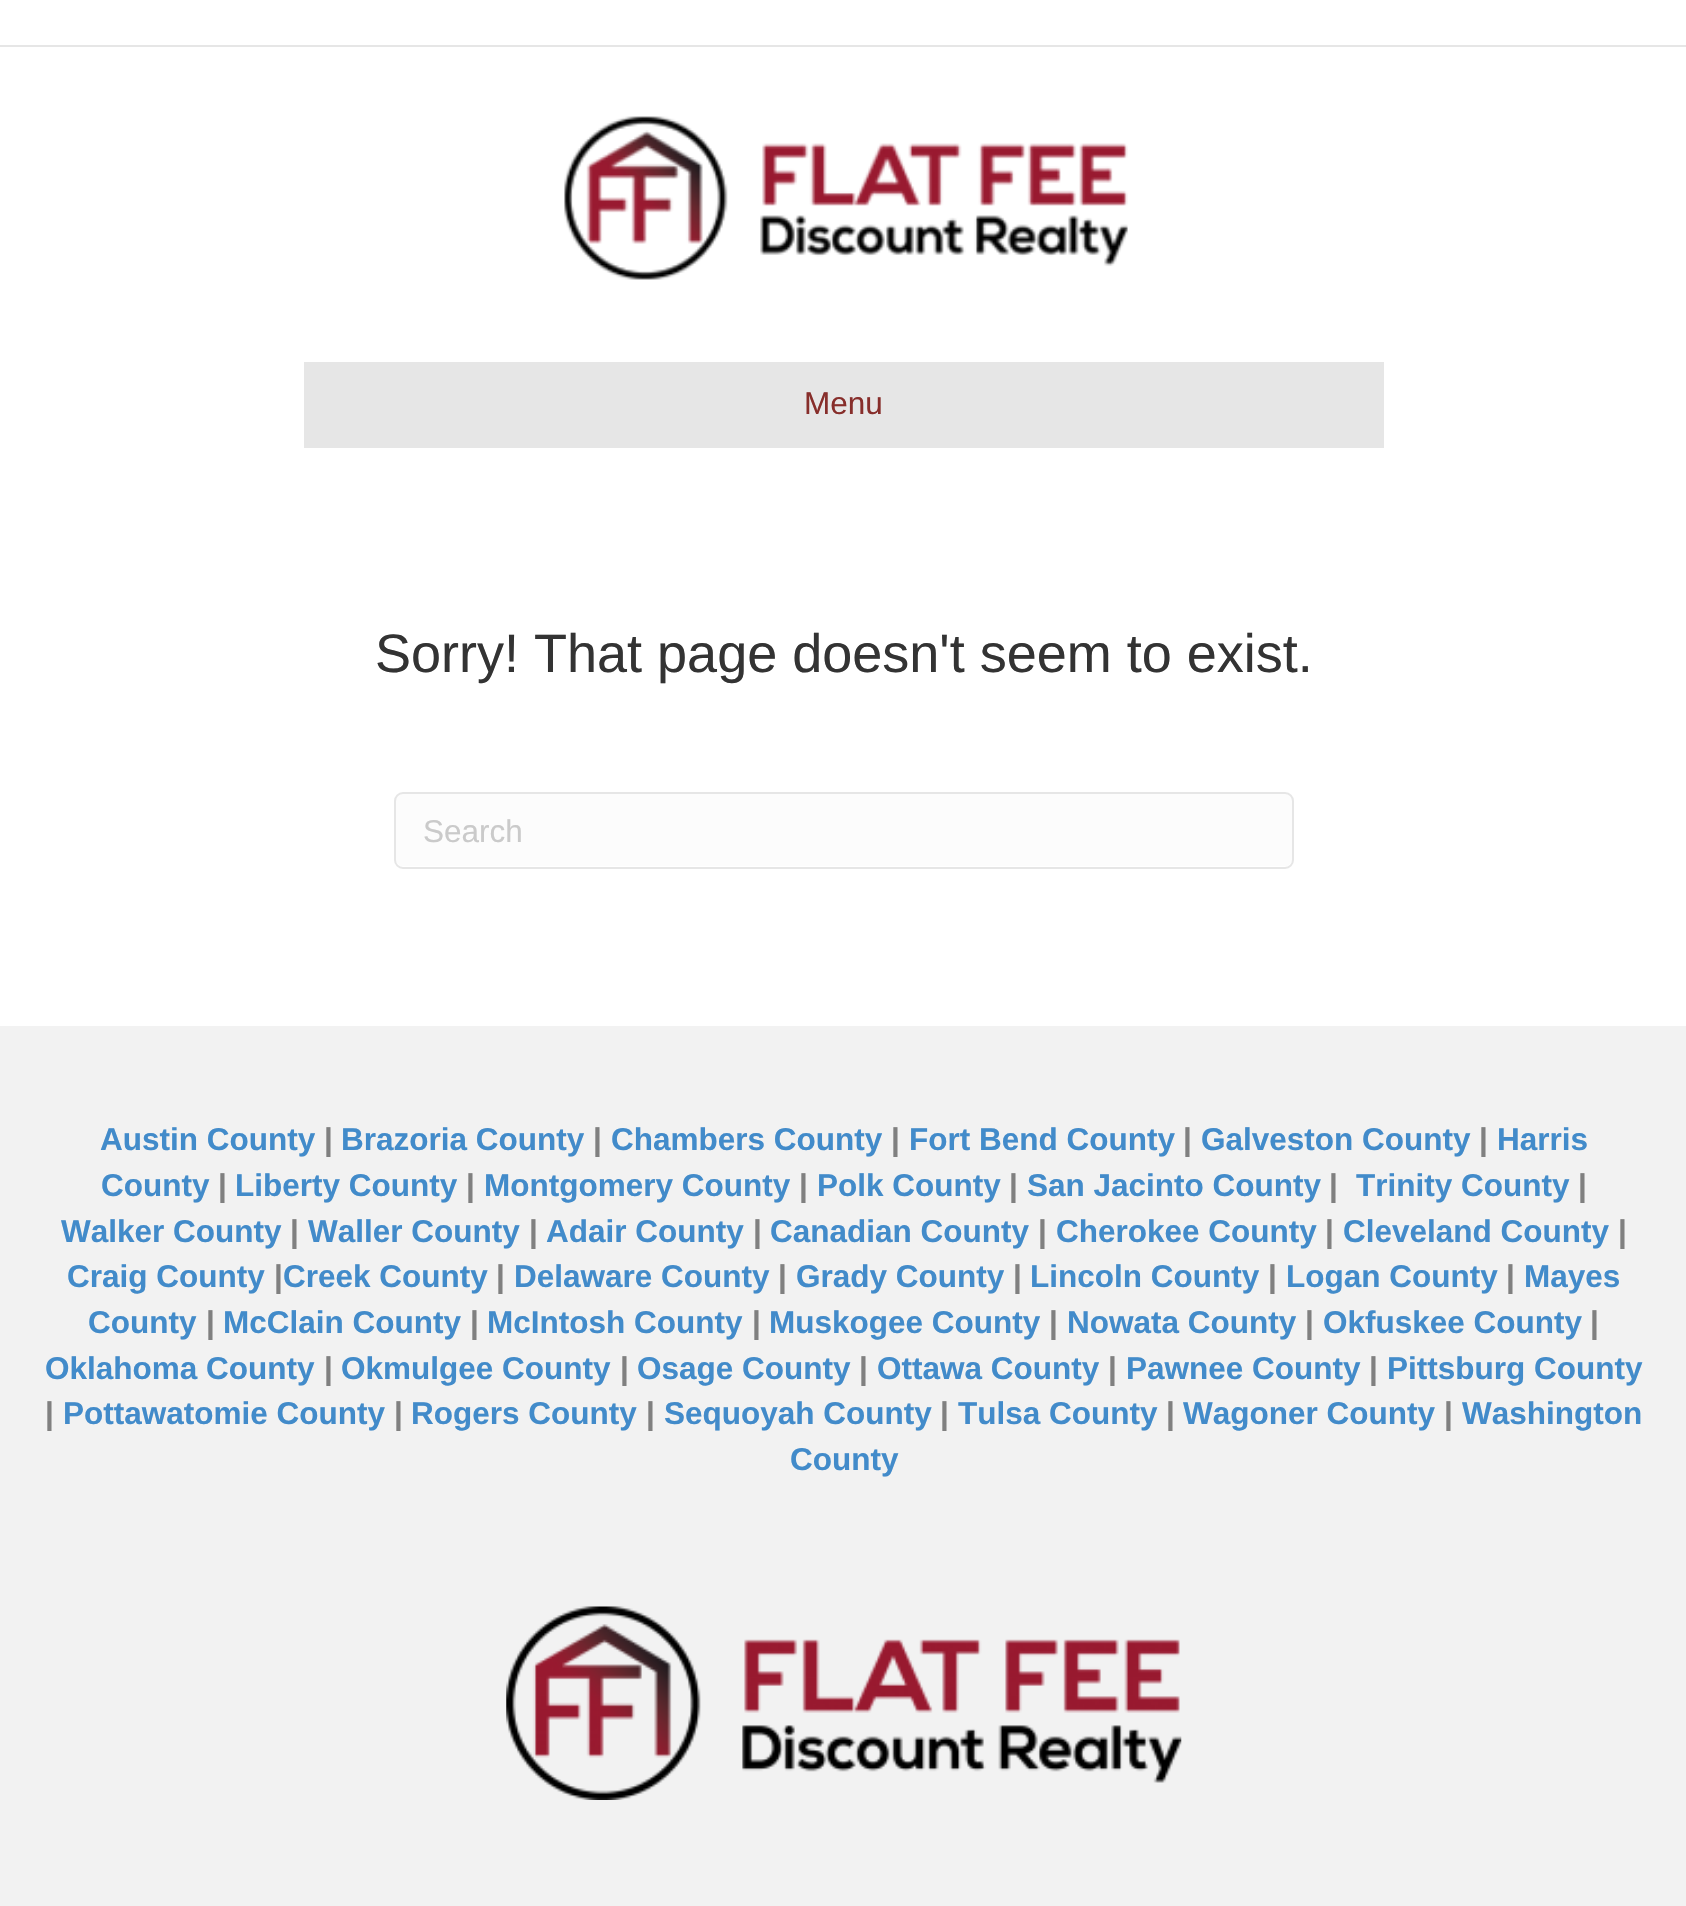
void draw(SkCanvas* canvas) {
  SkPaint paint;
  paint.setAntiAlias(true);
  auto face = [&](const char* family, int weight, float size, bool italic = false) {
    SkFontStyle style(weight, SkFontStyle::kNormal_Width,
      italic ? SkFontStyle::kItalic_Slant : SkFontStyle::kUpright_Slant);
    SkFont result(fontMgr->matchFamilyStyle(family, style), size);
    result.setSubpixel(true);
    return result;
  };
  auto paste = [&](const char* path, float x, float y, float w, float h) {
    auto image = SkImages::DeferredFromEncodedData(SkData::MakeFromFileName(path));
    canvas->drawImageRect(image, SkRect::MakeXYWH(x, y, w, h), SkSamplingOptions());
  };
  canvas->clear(0xfff2f2f2);
  {
    const struct { float x, y, w, h; SkColor color; } items[] = {
      {0, 0, 1686, 45, 0xffffffff},
      {0, 45, 1686, 2, 0xffe6e6e6},
      {0, 47, 1686, 979, 0xffffffff},
    };
    for (auto [x, y, w, h, color] : items) {
      paint.setColor(color);
      canvas->drawRect(SkRect::MakeXYWH(x, y, w, h), paint);
    }
  }
  paste("img/1.png", 564, 116, 564, 164);
  paint.setColor(0xffe6e6e6);
  canvas->drawRect(SkRect::MakeXYWH(304, 362, 1080, 86), paint);
  paint.setColor(0xfffcfcfc);
  canvas->drawRoundRect(SkRect::MakeXYWH(396, 794, 896, 72), 7, 7, paint);
  paint.setStroke(true);
  paint.setStrokeWidth(2);
  paint.setColor(0xffe6e6e6);
  canvas->drawRoundRect(SkRect::MakeXYWH(395, 793, 898, 75), 8, 8, paint);
  paste("img/2.png", 506, 1606, 676, 194);
  auto f0 = face("Liberation Sans", 400, 31.5f);
  paint.setStroke(false);
  paint.setColor(0xff872e2b);
  canvas->drawString("Menu", 804, 414, f0, paint);
  auto f1 = face("Liberation Sans", 400, 54);
  paint.setColor(0xff333333);
  canvas->drawString("Sorry! That page doesn't seem to exist.", 375, 672, f1, paint);
  paint.setColor(0xffcacaca);
  canvas->drawString("Search", 423, 842, f0, paint);
  auto f2 = face("Liberation Sans", 700, 31.5f);
  paint.setColor(0xff428bca);
  canvas->drawString("Austin County", 100, 1150, f2, paint);
  paint.setColor(0xff808080);
  canvas->drawString("|", 324, 1150, f2, paint);
  paint.setColor(0xff428bca);
  canvas->drawString("Brazoria County", 341, 1150, f2, paint);
  paint.setColor(0xff808080);
  canvas->drawString("|", 593, 1150, f2, paint);
  paint.setColor(0xff428bca);
  canvas->drawString("Chambers County", 611, 1150, f2, paint);
  paint.setColor(0xff808080);
  canvas->drawString("|", 891, 1150, f2, paint);
  paint.setColor(0xff428bca);
  canvas->drawString("Fort Bend County", 909, 1150, f2, paint);
  paint.setColor(0xff808080);
  canvas->drawString("|", 1183, 1150, f2, paint);
  paint.setColor(0xff428bca);
  canvas->drawString("Galveston County", 1201, 1150, f2, paint);
  paint.setColor(0xff808080);
  canvas->drawString("|", 1479, 1150, f2, paint);
  paint.setColor(0xff428bca);
  canvas->drawString("Harris", 1497, 1150, f2, paint);
  canvas->drawString("County", 101, 1196, f2, paint);
  paint.setColor(0xff808080);
  canvas->drawString("|", 218, 1196, f2, paint);
  paint.setColor(0xff428bca);
  canvas->drawString("Liberty County", 235, 1196, f2, paint);
  paint.setColor(0xff808080);
  canvas->drawString("|", 466, 1196, f2, paint);
  paint.setColor(0xff428bca);
  canvas->drawString("Montgomery County", 484, 1196, f2, paint);
  paint.setColor(0xff808080);
  canvas->drawString("|", 799, 1196, f2, paint);
  paint.setColor(0xff428bca);
  canvas->drawString("Polk County", 817, 1196, f2, paint);
  paint.setColor(0xff808080);
  canvas->drawString("|", 1009, 1196, f2, paint);
  paint.setColor(0xff428bca);
  canvas->drawString("San Jacinto County", 1027, 1196, f2, paint);
  paint.setColor(0xff808080);
  canvas->drawString("|", 1329, 1196, f2, paint);
  paint.setColor(0xff428bca);
  canvas->drawString("Trinity County", 1356, 1196, f2, paint);
  paint.setColor(0xff808080);
  canvas->drawString("|", 1578, 1196, f2, paint);
  paint.setColor(0xff428bca);
  canvas->drawString("Walker County", 61, 1242, f2, paint);
  paint.setColor(0xff808080);
  canvas->drawString("|", 290, 1242, f2, paint);
  paint.setColor(0xff428bca);
  canvas->drawString("Waller County", 308, 1242, f2, paint);
  paint.setColor(0xff808080);
  canvas->drawString("|", 529, 1242, f2, paint);
  paint.setColor(0xff428bca);
  canvas->drawString("Adair County", 546, 1242, f2, paint);
  paint.setColor(0xff808080);
  canvas->drawString("|", 753, 1242, f2, paint);
  paint.setColor(0xff428bca);
  canvas->drawString("Canadian County", 770, 1242, f2, paint);
  paint.setColor(0xff808080);
  canvas->drawString("|", 1038, 1242, f2, paint);
  paint.setColor(0xff428bca);
  canvas->drawString("Cherokee County", 1056, 1242, f2, paint);
  paint.setColor(0xff808080);
  canvas->drawString("|", 1325, 1242, f2, paint);
  paint.setColor(0xff428bca);
  canvas->drawString("Cleveland County", 1343, 1242, f2, paint);
  paint.setColor(0xff808080);
  canvas->drawString("|", 1618, 1242, f2, paint);
  paint.setColor(0xff428bca);
  canvas->drawString("Craig County", 67, 1287, f2, paint);
  paint.setColor(0xff808080);
  canvas->drawString("|", 274, 1287, f2, paint);
  paint.setColor(0xff428bca);
  canvas->drawString("Creek County", 283, 1287, f2, paint);
  paint.setColor(0xff808080);
  canvas->drawString("|", 496, 1287, f2, paint);
  paint.setColor(0xff428bca);
  canvas->drawString("Delaware County", 514, 1287, f2, paint);
  paint.setColor(0xff808080);
  canvas->drawString("|", 778, 1287, f2, paint);
  paint.setColor(0xff428bca);
  canvas->drawString("Grady County", 796, 1287, f2, paint);
  paint.setColor(0xff808080);
  canvas->drawString("|", 1013, 1287, f2, paint);
  paint.setColor(0xff428bca);
  canvas->drawString("Lincoln County", 1030, 1287, f2, paint);
  paint.setColor(0xff808080);
  canvas->drawString("|", 1268, 1287, f2, paint);
  paint.setColor(0xff428bca);
  canvas->drawString("Logan County", 1286, 1287, f2, paint);
  paint.setColor(0xff808080);
  canvas->drawString("|", 1506, 1287, f2, paint);
  paint.setColor(0xff428bca);
  canvas->drawString("Mayes", 1524, 1287, f2, paint);
  canvas->drawString("County", 88, 1333, f2, paint);
  paint.setColor(0xff808080);
  canvas->drawString("|", 206, 1333, f2, paint);
  paint.setColor(0xff428bca);
  canvas->drawString("McClain County", 223, 1333, f2, paint);
  paint.setColor(0xff808080);
  canvas->drawString("|", 470, 1333, f2, paint);
  paint.setColor(0xff428bca);
  canvas->drawString("McIntosh County", 487, 1333, f2, paint);
  paint.setColor(0xff808080);
  canvas->drawString("|", 752, 1333, f2, paint);
  paint.setColor(0xff428bca);
  canvas->drawString("Muskogee County", 769, 1333, f2, paint);
  paint.setColor(0xff808080);
  canvas->drawString("|", 1049, 1333, f2, paint);
  paint.setColor(0xff428bca);
  canvas->drawString("Nowata County", 1067, 1333, f2, paint);
  paint.setColor(0xff808080);
  canvas->drawString("|", 1305, 1333, f2, paint);
  paint.setColor(0xff428bca);
  canvas->drawString("Okfuskee County", 1323, 1333, f2, paint);
  paint.setColor(0xff808080);
  canvas->drawString("|", 1590, 1333, f2, paint);
  paint.setColor(0xff428bca);
  canvas->drawString("Oklahoma County", 45, 1379, f2, paint);
  paint.setColor(0xff808080);
  canvas->drawString("|", 324, 1379, f2, paint);
  paint.setColor(0xff428bca);
  canvas->drawString("Okmulgee County", 341, 1379, f2, paint);
  paint.setColor(0xff808080);
  canvas->drawString("|", 620, 1379, f2, paint);
  paint.setColor(0xff428bca);
  canvas->drawString("Osage County", 637, 1379, f2, paint);
  paint.setColor(0xff808080);
  canvas->drawString("|", 859, 1379, f2, paint);
  paint.setColor(0xff428bca);
  canvas->drawString("Ottawa County", 877, 1379, f2, paint);
  paint.setColor(0xff808080);
  canvas->drawString("|", 1108, 1379, f2, paint);
  paint.setColor(0xff428bca);
  canvas->drawString("Pawnee County", 1126, 1379, f2, paint);
  paint.setColor(0xff808080);
  canvas->drawString("|", 1369, 1379, f2, paint);
  paint.setColor(0xff428bca);
  canvas->drawString("Pittsburg County", 1387, 1379, f2, paint);
  paint.setColor(0xff808080);
  canvas->drawString("|", 45, 1424, f2, paint);
  paint.setColor(0xff428bca);
  canvas->drawString("Pottawatomie County", 63, 1424, f2, paint);
  paint.setColor(0xff808080);
  canvas->drawString("|", 394, 1424, f2, paint);
  paint.setColor(0xff428bca);
  canvas->drawString("Rogers County", 411, 1424, f2, paint);
  paint.setColor(0xff808080);
  canvas->drawString("|", 646, 1424, f2, paint);
  paint.setColor(0xff428bca);
  canvas->drawString("Sequoyah County", 664, 1424, f2, paint);
  paint.setColor(0xff808080);
  canvas->drawString("|", 940, 1424, f2, paint);
  paint.setColor(0xff428bca);
  canvas->drawString("Tulsa County", 958, 1424, f2, paint);
  paint.setColor(0xff808080);
  canvas->drawString("|", 1166, 1424, f2, paint);
  paint.setColor(0xff428bca);
  canvas->drawString("Wagoner County", 1183, 1424, f2, paint);
  paint.setColor(0xff808080);
  canvas->drawString("|", 1444, 1424, f2, paint);
  paint.setColor(0xff428bca);
  canvas->drawString("Washington", 1462, 1424, f2, paint);
  canvas->drawString("County", 790, 1470, f2, paint);
}
